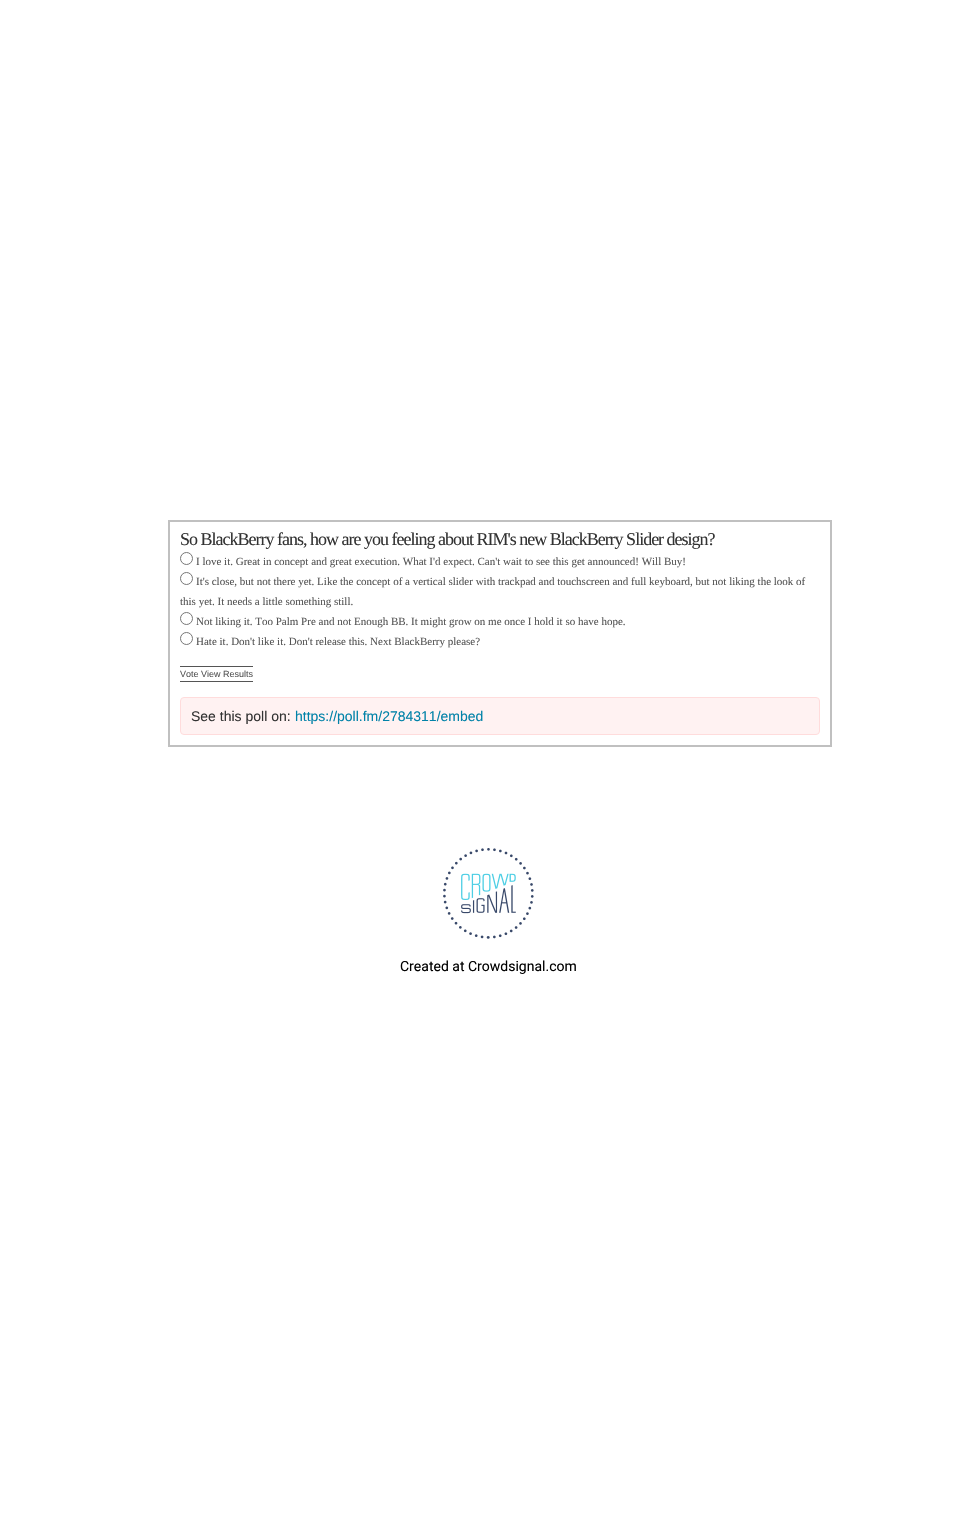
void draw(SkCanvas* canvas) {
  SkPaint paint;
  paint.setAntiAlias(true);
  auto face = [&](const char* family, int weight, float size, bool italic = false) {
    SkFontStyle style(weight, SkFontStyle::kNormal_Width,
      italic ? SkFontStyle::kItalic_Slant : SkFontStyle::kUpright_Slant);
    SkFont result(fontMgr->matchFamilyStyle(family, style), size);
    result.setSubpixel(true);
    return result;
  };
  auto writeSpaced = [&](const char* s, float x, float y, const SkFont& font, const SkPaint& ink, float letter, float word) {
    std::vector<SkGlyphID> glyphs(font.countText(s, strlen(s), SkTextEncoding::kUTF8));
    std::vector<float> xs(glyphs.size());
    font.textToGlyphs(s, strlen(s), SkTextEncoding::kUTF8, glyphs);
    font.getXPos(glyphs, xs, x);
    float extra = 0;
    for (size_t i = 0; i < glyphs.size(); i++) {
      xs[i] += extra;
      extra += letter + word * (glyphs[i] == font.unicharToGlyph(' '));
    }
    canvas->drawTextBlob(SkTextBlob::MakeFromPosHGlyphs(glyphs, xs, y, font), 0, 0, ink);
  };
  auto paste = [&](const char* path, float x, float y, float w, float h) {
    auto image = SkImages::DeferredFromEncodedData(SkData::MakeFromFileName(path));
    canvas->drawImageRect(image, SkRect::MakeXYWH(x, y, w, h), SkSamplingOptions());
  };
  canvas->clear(0xffffffff);
  paint.setStroke(true);
  paint.setStrokeWidth(2);
  paint.setColor(0xffc0c0c0);
  canvas->drawRect(SkRect::MakeXYWH(169, 521, 662, 225), paint);
  paint.setStrokeWidth(1);
  paint.setColor(0xff767676);
  canvas->drawCircle(186.5f, 558.5f, 6, paint);
  canvas->drawCircle(186.5f, 578.5f, 6, paint);
  canvas->drawCircle(186.5f, 618.5f, 6, paint);
  canvas->drawCircle(186.5f, 638.5f, 6, paint);
  paint.setStroke(false);
  paint.setColor(0xff555555);
  canvas->drawRect(SkRect::MakeXYWH(180, 666, 73, 1), paint);
  canvas->drawRect(SkRect::MakeXYWH(180, 681, 73, 1), paint);
  paint.setColor(0xfffff2f2);
  canvas->drawRoundRect(SkRect::MakeXYWH(180.5f, 697.5f, 639, 37), 3.5f, 3.5f, paint);
  paint.setStroke(true);
  paint.setColor(0xffffdcdc);
  canvas->drawRoundRect(SkRect::MakeXYWH(180.5f, 697.5f, 639, 37), 3.5f, 3.5f, paint);
  paste("img/1.png", 443, 848, 91, 91);
  auto f0 = face("Liberation Serif", 400, 18);
  paint.setStroke(false);
  paint.setColor(0xff333333);
  writeSpaced("So BlackBerry fans, how are you feeling about RIM's new BlackBerry Slider design?", 180, 545, f0, paint, -1, 0);
  auto f1 = face("Liberation Serif", 400, 11);
  paint.setColor(0xff555555);
  {
    const struct { const char* s; float x, y; } items[] = {
      {"I love it. Great in concept and great execution. What I'd expect. Can't wait to see this get announced! Will Buy!", 196, 565},
      {"It's close, but not there yet. Like the concept of a vertical slider with trackpad and touchscreen and full keyboard, but not liking the look of", 196, 585},
      {"this yet. It needs a little something still.", 180, 605},
      {"Not liking it. Too Palm Pre and not Enough BB. It might grow on me once I hold it so have hope.", 196, 625},
      {"Hate it. Don't like it. Don't release this. Next BlackBerry please?", 196, 645},
    };
    for (auto [s, x, y] : items) {
      canvas->drawString(s, x, y, f1, paint);
    }
  }
  auto f2 = face("Liberation Sans", 400, 9);
  canvas->drawString("Vote View Results", 180, 677, f2, paint);
  auto f3 = face("Liberation Sans", 400, 14);
  paint.setColor(0xff333333);
  canvas->drawString("See this poll on:", 191, 721, f3, paint);
  paint.setColor(0xff0182a8);
  canvas->drawString("https://poll.fm/2784311/embed", 295, 721, f3, paint);
  auto f4 = face("Roboto", 400, 14);
  paint.setColor(0xff000000);
  canvas->drawString("Created at Crowdsignal.com", 400, 971, f4, paint);
}
